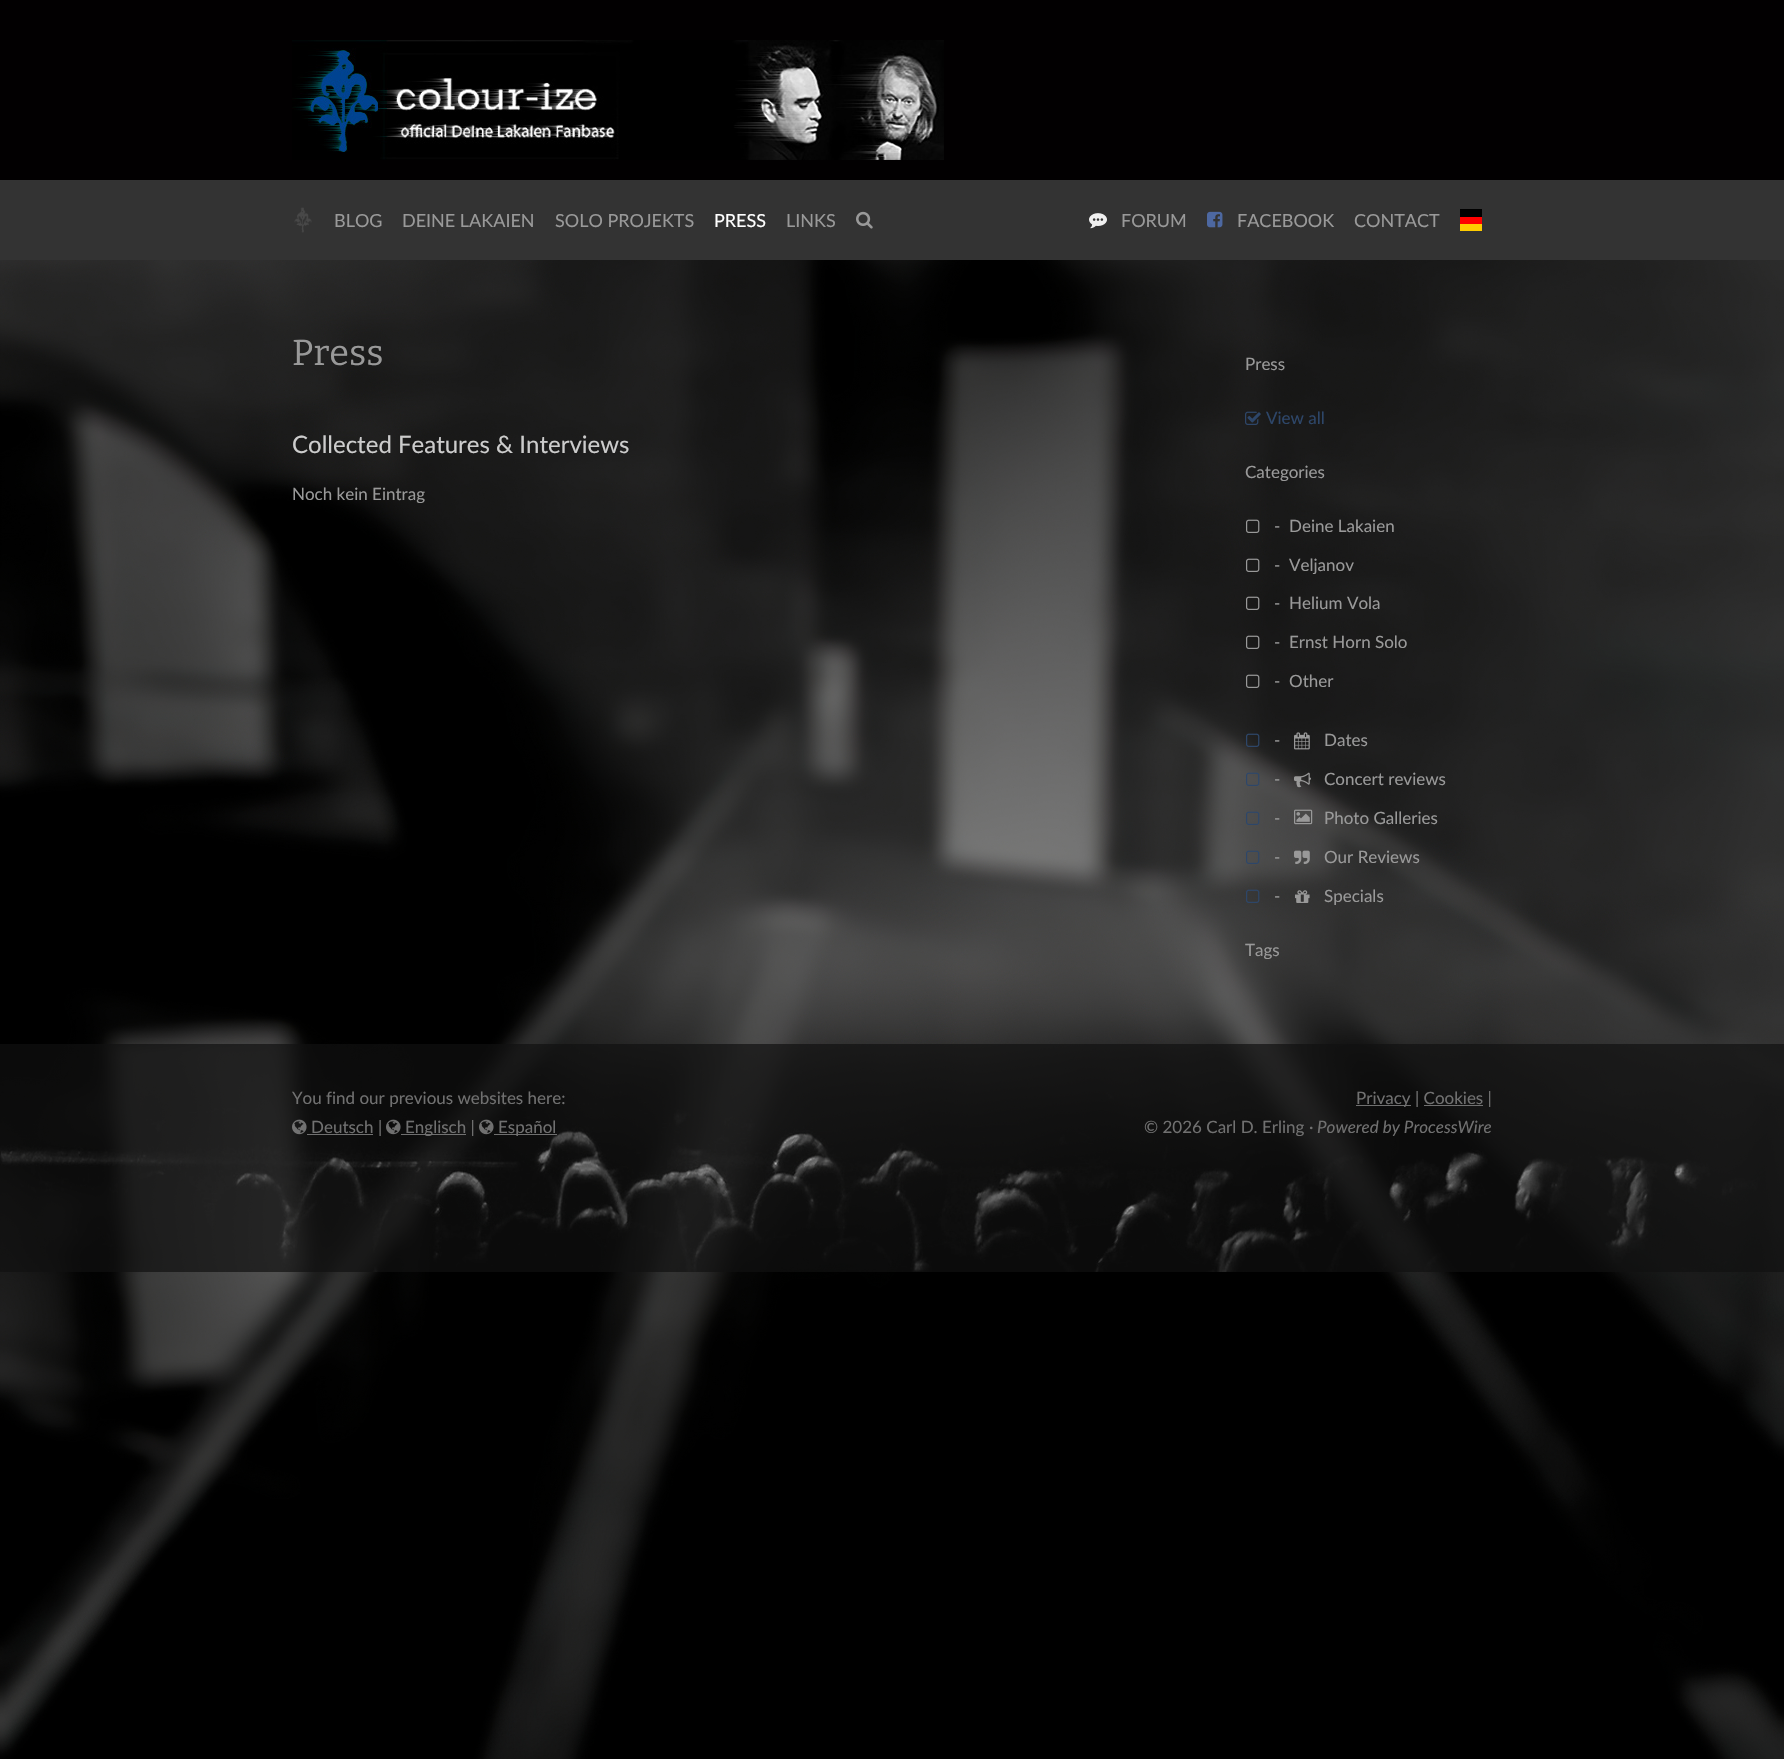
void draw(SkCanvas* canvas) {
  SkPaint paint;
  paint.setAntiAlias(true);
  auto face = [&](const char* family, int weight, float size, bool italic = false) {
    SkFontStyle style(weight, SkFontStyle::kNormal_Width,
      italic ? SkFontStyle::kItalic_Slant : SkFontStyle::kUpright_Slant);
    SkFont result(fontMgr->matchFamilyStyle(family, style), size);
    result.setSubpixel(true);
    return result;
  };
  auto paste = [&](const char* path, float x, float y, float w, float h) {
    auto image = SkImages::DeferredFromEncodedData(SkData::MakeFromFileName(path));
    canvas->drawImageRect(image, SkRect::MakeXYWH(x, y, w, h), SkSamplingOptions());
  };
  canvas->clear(0xffffffff);
  paste("img/1.png", 0, 260, 1784, 1499);
  paint.setColor(0xff020001);
  canvas->drawRect(SkRect::MakeXYWH(0, 0, 1784, 180), paint);
  paste("img/2.png", 292, 40, 652, 120);
  paint.setColor(0xff333333);
  canvas->drawRect(SkRect::MakeXYWH(0, 180, 1784, 80), paint);
  paste("img/3.png", 294, 207, 18, 26);
  paste("img/4.png", 856, 211, 17, 18);
  paste("img/5.png", 1089, 213, 18, 16);
  paste("img/6.png", 1207, 211, 16, 17);
  {
    const struct { float x, y, w, h; SkColor color; } items[] = {
      {1460, 224, 22, 7, 0xffffcc00},
      {1460, 209, 22, 8, 0xff000000},
      {1460, 217, 22, 7, 0xffff0000},
    };
    for (auto [x, y, w, h, color] : items) {
      paint.setColor(color);
      canvas->drawRect(SkRect::MakeXYWH(x, y, w, h), paint);
    }
  }
  paste("img/7.png", 1245, 411, 16, 14);
  paste("img/8.png", 1246, 519, 14, 14);
  paste("img/9.png", 1246, 558, 14, 14);
  paste("img/10.png", 1246, 596, 14, 14);
  paste("img/11.png", 1246, 635, 14, 14);
  paste("img/12.png", 1246, 674, 14, 14);
  paste("img/13.png", 1246, 733, 14, 14);
  paste("img/14.png", 1294, 732, 16, 18);
  paste("img/15.png", 1246, 772, 14, 14);
  paste("img/16.png", 1294, 772, 17, 16);
  paste("img/17.png", 1246, 811, 14, 14);
  paste("img/18.png", 1294, 809, 19, 16);
  paste("img/19.png", 1246, 850, 14, 14);
  paste("img/20.png", 1294, 850, 16, 14);
  paste("img/21.png", 1246, 889, 14, 14);
  paste("img/22.png", 1295, 890, 15, 13);
  paste("img/23.png", 0, 1044, 1784, 228);
  paste("img/24.png", 292, 1119, 15, 16);
  paint.setColor(0xff707070);
  canvas->drawRect(SkRect::MakeXYWH(307, 1134, 66, 1), paint);
  paste("img/25.png", 386, 1119, 15, 16);
  paint.setColor(0xb3999999);
  canvas->drawRect(SkRect::MakeXYWH(401, 1134, 65, 1), paint);
  paste("img/26.png", 479, 1119, 15, 16);
  {
    const struct { float x, y, w, h; SkColor color; } items[] = {
      {494, 1134, 63, 1, 0xb3999999},
      {1356, 1105, 55, 1, 0xff707070},
      {1424, 1105, 59, 1, 0xff707070},
    };
    for (auto [x, y, w, h, color] : items) {
      paint.setColor(color);
      canvas->drawRect(SkRect::MakeXYWH(x, y, w, h), paint);
    }
  }
  auto f0 = face("Lato", 400, 18);
  paint.setColor(0xff999999);
  {
    const struct { const char* s; float x, y; } items[] = {
      {"BLOG", 334, 227},
      {"DEINE LAKAIEN", 402, 227},
      {"SOLO PROJEKTS", 555, 227},
    };
    for (auto [s, x, y] : items) {
      canvas->drawString(s, x, y, f0, paint);
    }
  }
  paint.setColor(0xffffffff);
  canvas->drawString("PRESS", 714, 227, f0, paint);
  paint.setColor(0xff999999);
  {
    const struct { const char* s; float x, y; } items[] = {
      {"LINKS", 786, 227},
      {"FORUM", 1121, 227},
      {"FACEBOOK", 1237, 227},
      {"CONTACT", 1354, 227},
    };
    for (auto [s, x, y] : items) {
      canvas->drawString(s, x, y, f0, paint);
    }
  }
  auto f1 = face("Bitter", 400, 36);
  canvas->drawString("Press", 292, 365, f1, paint);
  auto f2 = face("Lato", 400, 24);
  paint.setColor(0xffcccccc);
  canvas->drawString("Collected Features & Interviews", 292, 453, f2, paint);
  auto f3 = face("Lato", 400, 17);
  paint.setColor(0xff999999);
  canvas->drawString("Noch kein Eintrag", 292, 500, f3, paint);
  canvas->drawString("Press", 1245, 370, f3, paint);
  paint.setColor(0xff2d4669);
  canvas->drawString("View all", 1266, 424, f3, paint);
  paint.setColor(0xff999999);
  {
    const struct { const char* s; float x, y; } items[] = {
      {"Categories", 1245, 478},
      {"-  Deine Lakaien", 1274, 532},
      {"-  Veljanov", 1274, 571},
      {"-  Helium Vola", 1274, 609},
      {"-  Ernst Horn Solo", 1274, 648},
      {"-  Other", 1274, 687},
      {"-", 1274, 746},
      {"Dates", 1324, 746},
      {"-", 1274, 785},
      {"Concert reviews", 1324, 785},
      {"-", 1274, 824},
      {"Photo Galleries", 1324, 824},
      {"-", 1274, 863},
      {"Our Reviews", 1324, 863},
      {"-", 1274, 902},
      {"Specials", 1324, 902},
      {"Tags", 1245, 956},
    };
    for (auto [s, x, y] : items) {
      canvas->drawString(s, x, y, f3, paint);
    }
  }
  paint.setColor(0xff707070);
  {
    const struct { const char* s; float x, y; } items[] = {
      {"You find our previous websites here:", 292, 1104},
      {"Deutsch", 311, 1133},
      {"|", 378, 1133},
      {"Englisch |", 405, 1133},
      {"Español", 498, 1133},
      {"Privacy | Cookies |", 1356, 1104},
      {"© 2026 Carl D. Erling", 1144, 1133},
      {"·", 1309, 1133},
    };
    for (auto [s, x, y] : items) {
      canvas->drawString(s, x, y, f3, paint);
    }
  }
  auto f4 = face("Lato", 400, 17, true);
  canvas->drawString("Powered by ProcessWire", 1317, 1133, f4, paint);
}
